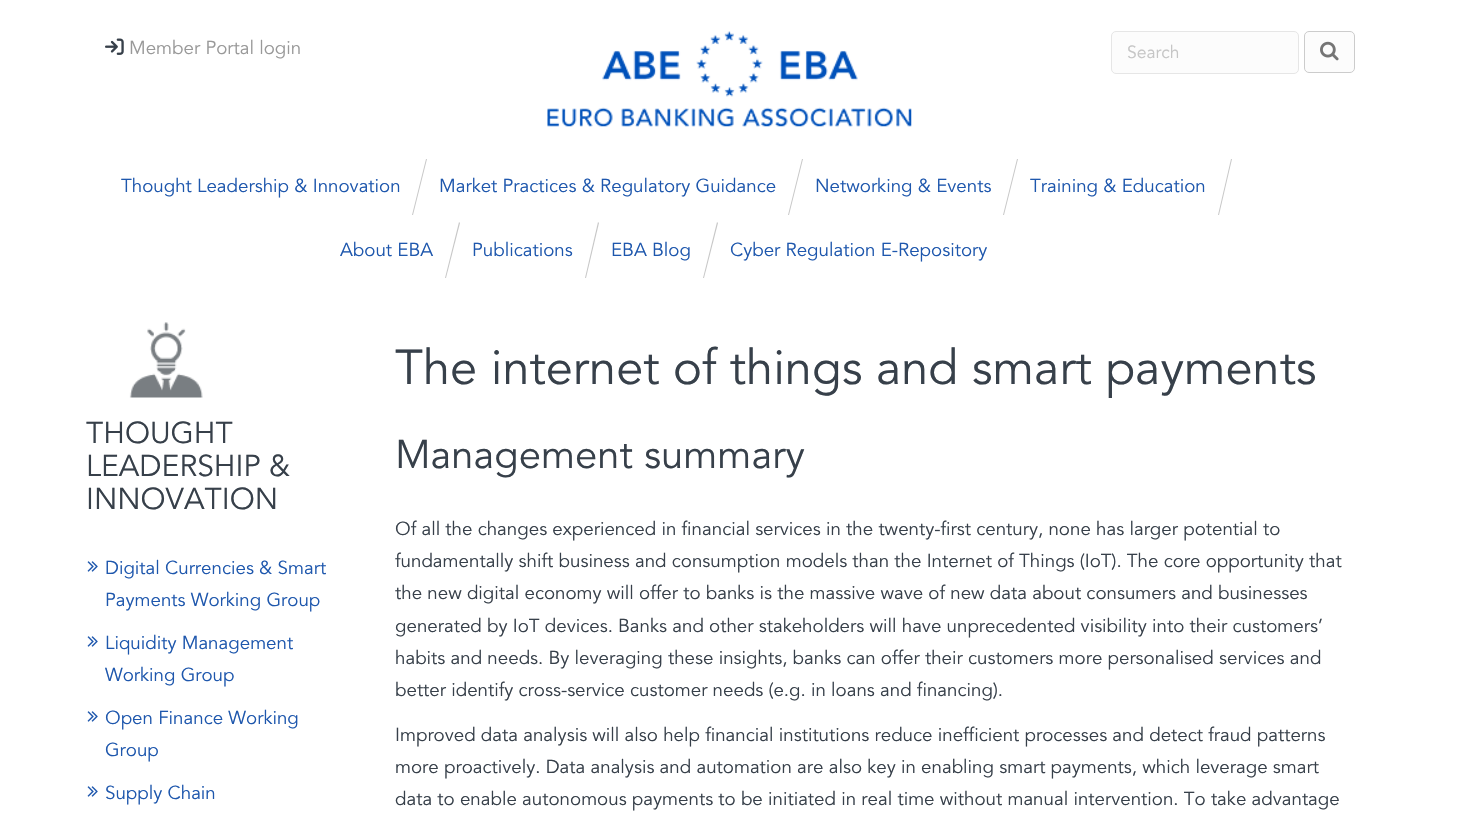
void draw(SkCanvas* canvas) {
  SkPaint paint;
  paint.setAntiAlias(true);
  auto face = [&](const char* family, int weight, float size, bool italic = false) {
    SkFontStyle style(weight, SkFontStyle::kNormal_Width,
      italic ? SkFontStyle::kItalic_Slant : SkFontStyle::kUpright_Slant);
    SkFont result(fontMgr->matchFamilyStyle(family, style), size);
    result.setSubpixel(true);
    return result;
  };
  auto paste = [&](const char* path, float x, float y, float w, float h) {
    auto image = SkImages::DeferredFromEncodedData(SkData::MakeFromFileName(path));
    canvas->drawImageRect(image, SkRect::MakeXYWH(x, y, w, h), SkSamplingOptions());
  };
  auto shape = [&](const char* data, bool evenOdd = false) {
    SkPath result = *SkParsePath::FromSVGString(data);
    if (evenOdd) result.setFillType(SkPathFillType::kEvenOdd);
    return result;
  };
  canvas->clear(0xffffffff);
  paste("img/1.png", 105, 38, 19, 17);
  paste("img/2.png", 547, 31, 365, 96);
  paint.setColor(0xfffcfcfc);
  canvas->drawRoundRect(SkRect::MakeXYWH(1111.5f, 31.5f, 187, 42), 4.5f, 4.5f, paint);
  paint.setStroke(true);
  paint.setStrokeWidth(1);
  paint.setColor(0xffe6e6e6);
  canvas->drawRoundRect(SkRect::MakeXYWH(1111.5f, 31.5f, 187, 42), 4.5f, 4.5f, paint);
  paint.setStroke(false);
  paint.setColor(0xfffcfcfc);
  canvas->drawRoundRect(SkRect::MakeXYWH(1304.5f, 31.5f, 50, 41), 4.5f, 4.5f, paint);
  paint.setStroke(true);
  paint.setColor(0xffcccccc);
  canvas->drawRoundRect(SkRect::MakeXYWH(1304.5f, 31.5f, 50, 41), 4.5f, 4.5f, paint);
  paste("img/3.png", 1320, 41, 19, 20);
  paint.setStroke(false);
  paint.setColor(0xffc7c7c7);
  canvas->drawPath(shape("M426 159H427L413 215H412Z"), paint);
  canvas->drawPath(shape("M802 159H803L789 215H788Z"), paint);
  canvas->drawPath(shape("M1017 159H1018L1004 215H1003Z"), paint);
  canvas->drawPath(shape("M1231 159H1232L1219 215H1218Z"), paint);
  canvas->drawPath(shape("M459 222L460 223L446 278H445Z"), paint);
  canvas->drawPath(shape("M598 222L599 223L586 278H585Z"), paint);
  canvas->drawPath(shape("M717 222L718 223L704 278H703Z"), paint);
  paste("img/4.png", 129, 322, 74, 76);
  paste("img/5.png", 87, 561, 11, 11);
  paste("img/5.png", 87, 636, 11, 11);
  paste("img/5.png", 87, 711, 11, 11);
  paste("img/5.png", 87, 786, 11, 11);
  auto f0 = face("avenir", 400, 18.75f);
  paint.setColor(0xff999999);
  canvas->drawString("Member Portal login", 129, 54, f0, paint);
  auto f1 = face("avenir", 400, 17.5f);
  paint.setColor(0xffc6c6c6);
  canvas->drawString("Search", 1127, 58, f1, paint);
  paint.setColor(0xff1e57ad);
  {
    const struct { const char* s; float x, y; } items[] = {
      {"Thought Leadership & Innovation", 121, 192},
      {"Market Practices & Regulatory Guidance", 439, 192},
      {"Networking & Events", 815, 192},
      {"Training & Education", 1030, 192},
      {"About EBA", 340, 256},
      {"Publications", 472, 256},
      {"EBA Blog", 611, 256},
      {"Cyber Regulation E-Repository", 730, 256},
    };
    for (auto [s, x, y] : items) {
      canvas->drawString(s, x, y, f0, paint);
    }
  }
  auto f2 = face("avenir", 400, 30);
  paint.setColor(0xff37404a);
  {
    const struct { const char* s; float x, y; } items[] = {
      {"THOUGHT", 86, 443},
      {"LEADERSHIP &", 86, 476},
      {"INNOVATION", 86, 509},
    };
    for (auto [s, x, y] : items) {
      canvas->drawString(s, x, y, f2, paint);
    }
  }
  paint.setColor(0xff1e57ad);
  {
    const struct { const char* s; float x, y; } items[] = {
      {"Digital Currencies & Smart", 105, 574},
      {"Payments Working Group", 105, 606},
      {"Liquidity Management", 105, 649},
      {"Working Group", 105, 681},
      {"Open Finance Working", 105, 724},
      {"Group", 105, 756},
      {"Supply Chain", 105, 799},
    };
    for (auto [s, x, y] : items) {
      canvas->drawString(s, x, y, f0, paint);
    }
  }
  auto f3 = face("avenir", 400, 48.75f);
  paint.setColor(0xff37404a);
  canvas->drawString("The internet of things and smart payments", 395, 384, f3, paint);
  auto f4 = face("avenir", 400, 40);
  canvas->drawString("Management summary", 395, 468, f4, paint);
  {
    const struct { const char* s; float x, y; } items[] = {
      {"Of all the changes experienced in financial services in the twenty-first century, none has larger potential to", 395, 535},
      {"fundamentally shift business and consumption models than the Internet of Things (IoT). The core opportunity that", 395, 567},
      {"the new digital economy will offer to banks is the massive wave of new data about consumers and businesses", 395, 599},
      {"generated by IoT devices. Banks and other stakeholders will have unprecedented visibility into their customers’", 395, 632},
      {"habits and needs. By leveraging these insights, banks can offer their customers more personalised services and", 395, 664},
      {"better identify cross-service customer needs (e.g. in loans and financing).", 395, 696},
      {"Improved data analysis will also help financial institutions reduce inefficient processes and detect fraud patterns", 395, 741},
      {"more proactively. Data analysis and automation are also key in enabling smart payments, which leverage smart", 395, 773},
      {"data to enable autonomous payments to be initiated in real time without manual intervention. To take advantage", 395, 805},
    };
    for (auto [s, x, y] : items) {
      canvas->drawString(s, x, y, f0, paint);
    }
  }
}
